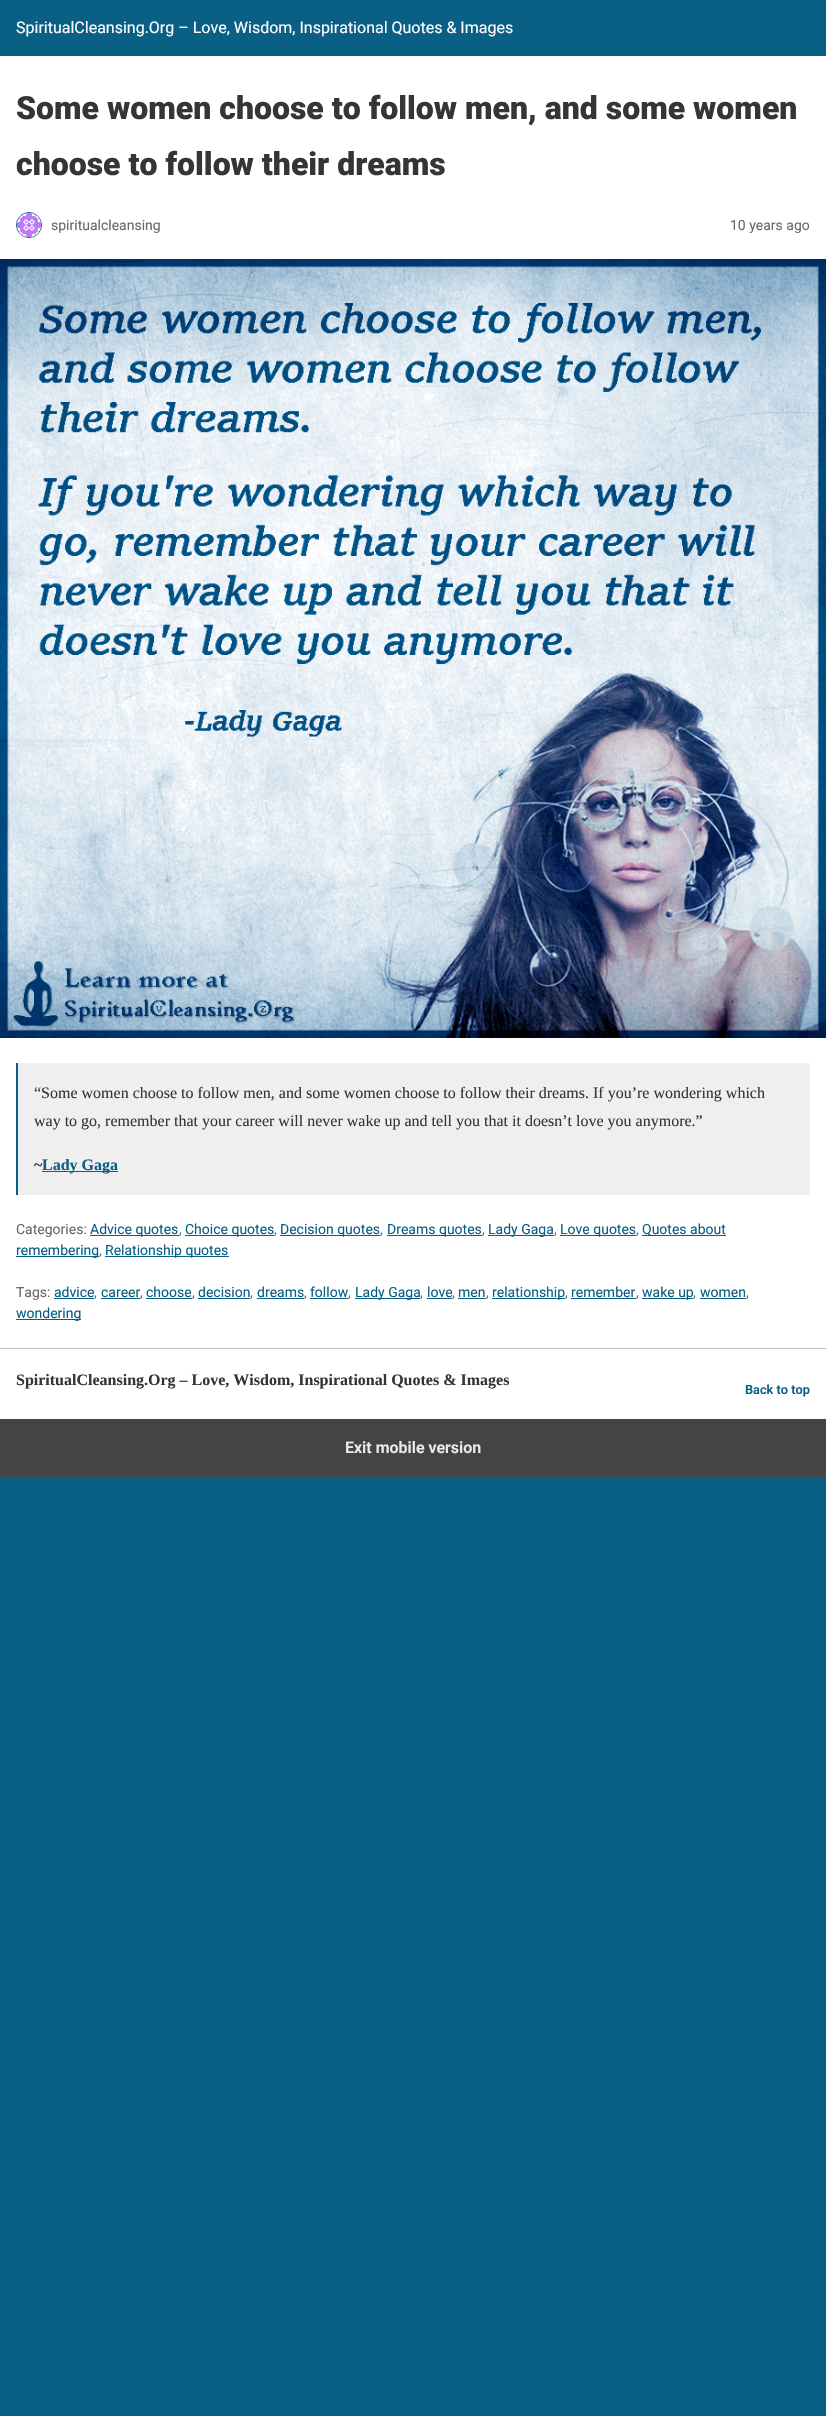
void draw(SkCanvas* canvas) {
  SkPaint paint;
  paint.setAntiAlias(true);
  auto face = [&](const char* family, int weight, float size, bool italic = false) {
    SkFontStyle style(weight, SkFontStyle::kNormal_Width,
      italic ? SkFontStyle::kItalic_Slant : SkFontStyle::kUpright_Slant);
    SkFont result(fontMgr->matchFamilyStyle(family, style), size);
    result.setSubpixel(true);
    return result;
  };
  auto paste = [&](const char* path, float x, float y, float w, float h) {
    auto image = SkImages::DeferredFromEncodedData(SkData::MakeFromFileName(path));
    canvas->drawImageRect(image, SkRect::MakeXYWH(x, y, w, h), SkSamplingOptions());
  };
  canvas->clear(0xff0a5f85);
  paint.setColor(0xffffffff);
  canvas->drawRect(SkRect::MakeXYWH(0, 56, 826, 1363), paint);
  paint.setStroke(true);
  paint.setStrokeWidth(1);
  paint.setColor(0xff0a5f85);
  canvas->drawCircle(29, 225, 12.5f, paint);
  paste("img/1.png", 17, 213, 24, 24);
  paste("img/2.png", 0, 259, 826, 779);
  paint.setStroke(false);
  {
    const struct { float x, y, w, h; SkColor color; } items[] = {
      {18, 1063, 792, 132, 0xffefefef},
      {16, 1063, 2, 132, 0xff0a5f85},
      {42, 1171, 76, 1, 0xff0a5f85},
      {90, 1235, 89, 1, 0xff0a5f85},
      {185, 1235, 89, 1, 0xff0a5f85},
      {280, 1235, 100, 1, 0xff0a5f85},
      {387, 1235, 95, 1, 0xff0a5f85},
      {488, 1235, 66, 1, 0xff0a5f85},
      {560, 1235, 76, 1, 0xff0a5f85},
      {642, 1235, 84, 1, 0xff0a5f85},
      {16, 1256, 83, 1, 0xff0a5f85},
      {105, 1256, 124, 1, 0xff0a5f85},
      {54, 1298, 40, 1, 0xff0a5f85},
      {101, 1298, 39, 1, 0xff0a5f85},
      {146, 1298, 46, 1, 0xff0a5f85},
      {198, 1298, 52, 1, 0xff0a5f85},
      {257, 1298, 47, 1, 0xff0a5f85},
      {310, 1298, 38, 1, 0xff0a5f85},
      {355, 1298, 65, 1, 0xff0a5f85},
      {427, 1298, 25, 1, 0xff0a5f85},
      {458, 1298, 28, 1, 0xff0a5f85},
      {492, 1298, 73, 1, 0xff0a5f85},
      {571, 1298, 65, 1, 0xff0a5f85},
      {642, 1298, 51, 1, 0xff0a5f85},
      {700, 1298, 46, 1, 0xff0a5f85},
      {16, 1319, 65, 1, 0xff0a5f85},
      {0, 1348, 826, 1, 0xffc2c2c2},
      {0, 1419, 826, 58, 0xff444444},
    };
    for (auto [x, y, w, h, color] : items) {
      paint.setColor(color);
      canvas->drawRect(SkRect::MakeXYWH(x, y, w, h), paint);
    }
  }
  auto f0 = face("Roboto", 400, 16);
  paint.setColor(0xffffffff);
  canvas->drawString("SpiritualCleansing.Org – Love, Wisdom, Inspirational Quotes & Images", 16, 33, f0, paint);
  auto f1 = face("Roboto", 900, 32);
  paint.setColor(0xff353535);
  canvas->drawString("Some women choose to follow men, and some women", 16, 119, f1, paint);
  canvas->drawString("choose to follow their dreams", 16, 175, f1, paint);
  auto f2 = face("Roboto", 400, 14);
  paint.setColor(0xff696969);
  canvas->drawString("spiritualcleansing", 51, 230, f2, paint);
  canvas->drawString("10 years ago", 730, 230, f2, paint);
  auto f3 = face("Liberation Serif", 400, 16);
  paint.setColor(0xff353535);
  canvas->drawString("“Some women choose to follow men, and some women choose to follow their dreams. If you’re wondering which", 34, 1098, f3, paint);
  canvas->drawString("way to go, remember that your career will never wake up and tell you that it doesn’t love you anymore.”", 34, 1126, f3, paint);
  auto f4 = face("Liberation Serif", 700, 16);
  canvas->drawString("~", 34, 1170, f4, paint);
  paint.setColor(0xff0a5f85);
  canvas->drawString("Lady Gaga", 42, 1170, f4, paint);
  paint.setColor(0xff696969);
  canvas->drawString("Categories:", 16, 1234, f2, paint);
  paint.setColor(0xff0a5f85);
  canvas->drawString("Advice quotes", 90, 1234, f2, paint);
  paint.setColor(0xff696969);
  canvas->drawString(",", 179, 1234, f2, paint);
  paint.setColor(0xff0a5f85);
  canvas->drawString("Choice quotes", 185, 1234, f2, paint);
  paint.setColor(0xff696969);
  canvas->drawString(",", 274, 1234, f2, paint);
  paint.setColor(0xff0a5f85);
  canvas->drawString("Decision quotes", 280, 1234, f2, paint);
  paint.setColor(0xff696969);
  canvas->drawString(",", 380, 1234, f2, paint);
  paint.setColor(0xff0a5f85);
  canvas->drawString("Dreams quotes", 387, 1234, f2, paint);
  paint.setColor(0xff696969);
  canvas->drawString(",", 482, 1234, f2, paint);
  paint.setColor(0xff0a5f85);
  canvas->drawString("Lady Gaga", 488, 1234, f2, paint);
  paint.setColor(0xff696969);
  canvas->drawString(",", 554, 1234, f2, paint);
  paint.setColor(0xff0a5f85);
  canvas->drawString("Love quotes", 560, 1234, f2, paint);
  paint.setColor(0xff696969);
  canvas->drawString(",", 636, 1234, f2, paint);
  paint.setColor(0xff0a5f85);
  canvas->drawString("Quotes about", 642, 1234, f2, paint);
  canvas->drawString("remembering", 16, 1255, f2, paint);
  paint.setColor(0xff696969);
  canvas->drawString(",", 99, 1255, f2, paint);
  paint.setColor(0xff0a5f85);
  canvas->drawString("Relationship quotes", 105, 1255, f2, paint);
  paint.setColor(0xff696969);
  canvas->drawString("Tags:", 16, 1297, f2, paint);
  paint.setColor(0xff0a5f85);
  canvas->drawString("advice", 54, 1297, f2, paint);
  paint.setColor(0xff696969);
  canvas->drawString(",", 94, 1297, f2, paint);
  paint.setColor(0xff0a5f85);
  canvas->drawString("career", 101, 1297, f2, paint);
  paint.setColor(0xff696969);
  canvas->drawString(",", 140, 1297, f2, paint);
  paint.setColor(0xff0a5f85);
  canvas->drawString("choose", 146, 1297, f2, paint);
  paint.setColor(0xff696969);
  canvas->drawString(",", 192, 1297, f2, paint);
  paint.setColor(0xff0a5f85);
  canvas->drawString("decision", 198, 1297, f2, paint);
  paint.setColor(0xff696969);
  canvas->drawString(",", 250, 1297, f2, paint);
  paint.setColor(0xff0a5f85);
  canvas->drawString("dreams", 257, 1297, f2, paint);
  paint.setColor(0xff696969);
  canvas->drawString(",", 304, 1297, f2, paint);
  paint.setColor(0xff0a5f85);
  canvas->drawString("follow", 310, 1297, f2, paint);
  paint.setColor(0xff696969);
  canvas->drawString(",", 348, 1297, f2, paint);
  paint.setColor(0xff0a5f85);
  canvas->drawString("Lady Gaga", 355, 1297, f2, paint);
  paint.setColor(0xff696969);
  canvas->drawString(",", 420, 1297, f2, paint);
  paint.setColor(0xff0a5f85);
  canvas->drawString("love", 427, 1297, f2, paint);
  paint.setColor(0xff696969);
  canvas->drawString(",", 452, 1297, f2, paint);
  paint.setColor(0xff0a5f85);
  canvas->drawString("men", 458, 1297, f2, paint);
  paint.setColor(0xff696969);
  canvas->drawString(",", 486, 1297, f2, paint);
  paint.setColor(0xff0a5f85);
  canvas->drawString("relationship", 492, 1297, f2, paint);
  paint.setColor(0xff696969);
  canvas->drawString(",", 565, 1297, f2, paint);
  paint.setColor(0xff0a5f85);
  canvas->drawString("remember", 571, 1297, f2, paint);
  paint.setColor(0xff696969);
  canvas->drawString(",", 636, 1297, f2, paint);
  paint.setColor(0xff0a5f85);
  canvas->drawString("wake up", 642, 1297, f2, paint);
  paint.setColor(0xff696969);
  canvas->drawString(",", 693, 1297, f2, paint);
  paint.setColor(0xff0a5f85);
  canvas->drawString("women", 700, 1297, f2, paint);
  paint.setColor(0xff696969);
  canvas->drawString(",", 746, 1297, f2, paint);
  paint.setColor(0xff0a5f85);
  canvas->drawString("wondering", 16, 1318, f2, paint);
  paint.setColor(0xff353535);
  canvas->drawString("SpiritualCleansing.Org – Love, Wisdom, Inspirational Quotes & Images", 16, 1385, f4, paint);
  auto f5 = face("Roboto", 600, 12.75f);
  paint.setColor(0xff0a5f85);
  canvas->drawString("Back to top", 745, 1394, f5, paint);
  auto f6 = face("Roboto", 600, 16);
  paint.setColor(0xffeaeaea);
  canvas->drawString("Exit mobile version", 345, 1453, f6, paint);
}
